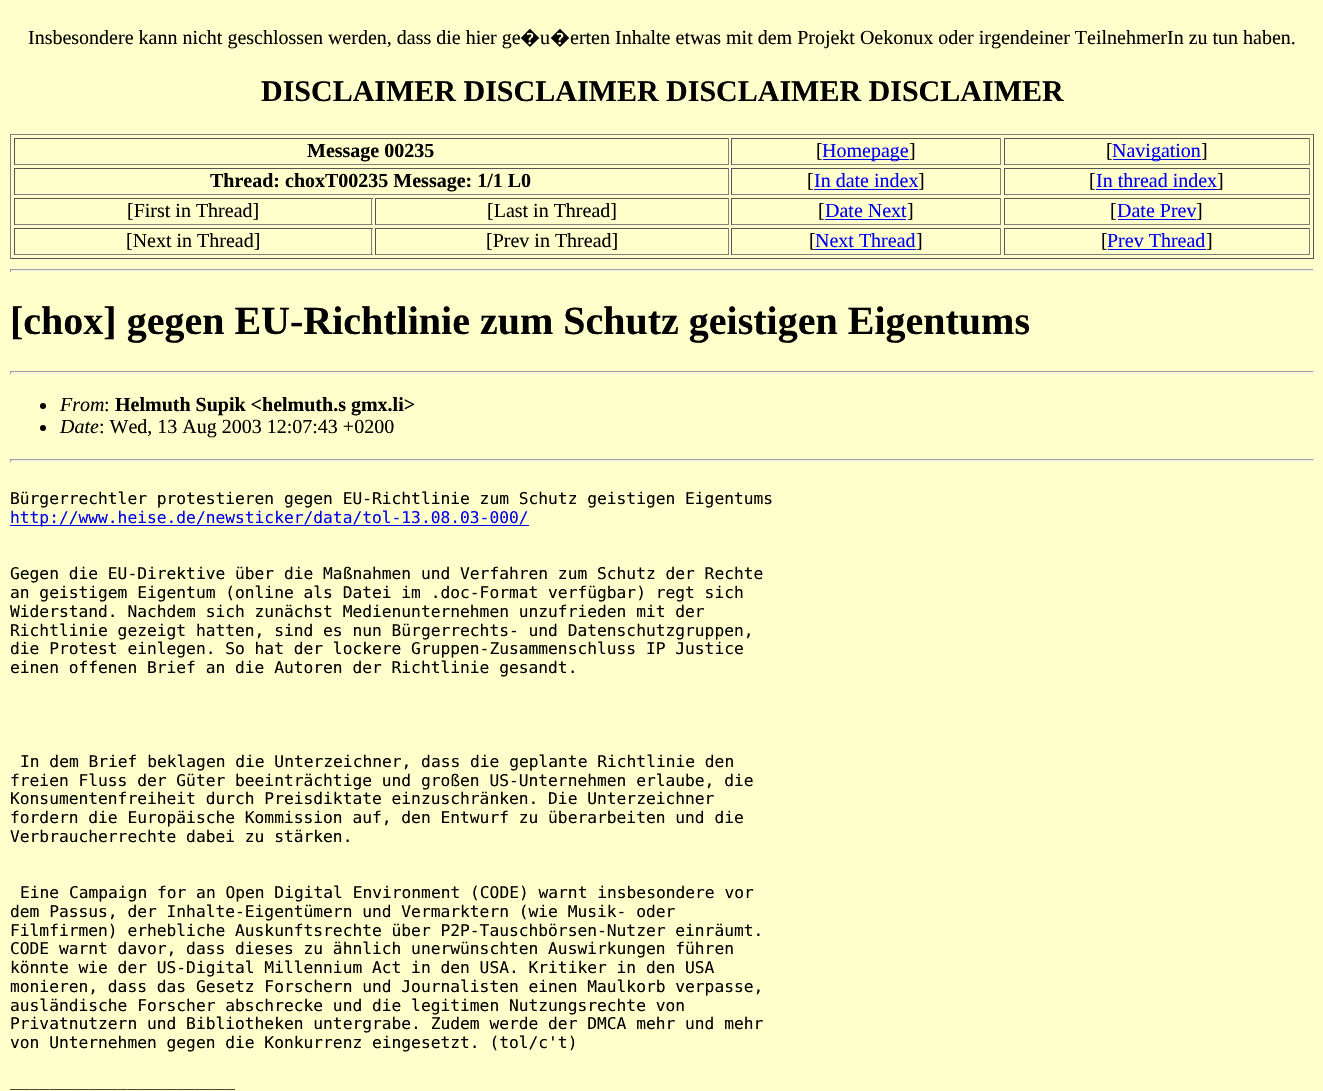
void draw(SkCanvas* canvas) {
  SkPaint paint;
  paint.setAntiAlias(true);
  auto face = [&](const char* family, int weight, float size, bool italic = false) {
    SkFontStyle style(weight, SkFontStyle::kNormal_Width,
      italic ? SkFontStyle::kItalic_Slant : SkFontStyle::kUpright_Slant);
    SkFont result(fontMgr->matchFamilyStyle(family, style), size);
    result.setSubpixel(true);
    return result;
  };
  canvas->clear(0xffffffcc);
  {
    const struct { float x, y, w, h; SkColor color; } items[] = {
      {10, 134, 1304, 1, 0xff808080},
      {1313, 134, 1, 125, 0xff555555},
      {10, 258, 1304, 1, 0xff555555},
      {10, 134, 1, 125, 0xff808080},
      {14, 138, 715, 1, 0xff555555},
      {728, 138, 1, 27, 0xff808080},
      {14, 164, 715, 1, 0xff808080},
      {14, 138, 1, 27, 0xff555555},
      {731, 138, 270, 1, 0xff555555},
      {1000, 138, 1, 27, 0xff808080},
      {731, 164, 270, 1, 0xff808080},
      {731, 138, 1, 27, 0xff555555},
      {823, 159, 86, 1, 0xff0000ee},
      {1004, 138, 306, 1, 0xff555555},
      {1309, 138, 1, 27, 0xff808080},
      {1004, 164, 306, 1, 0xff808080},
      {1004, 138, 1, 27, 0xff555555},
      {1113, 159, 88, 1, 0xff0000ee},
      {14, 168, 715, 1, 0xff555555},
      {728, 168, 1, 27, 0xff808080},
      {14, 194, 715, 1, 0xff808080},
      {14, 168, 1, 27, 0xff555555},
      {731, 168, 270, 1, 0xff555555},
      {1000, 168, 1, 27, 0xff808080},
      {731, 194, 270, 1, 0xff808080},
      {731, 168, 1, 27, 0xff555555},
      {814, 189, 104, 1, 0xff0000ee},
      {1004, 168, 306, 1, 0xff555555},
      {1309, 168, 1, 27, 0xff808080},
      {1004, 194, 306, 1, 0xff808080},
      {1004, 168, 1, 27, 0xff555555},
      {1096, 189, 122, 1, 0xff0000ee},
      {14, 198, 359, 1, 0xff555555},
      {371, 198, 1, 27, 0xff808080},
      {14, 224, 359, 1, 0xff808080},
      {14, 198, 1, 27, 0xff555555},
      {375, 198, 354, 1, 0xff555555},
      {728, 198, 1, 27, 0xff808080},
      {375, 224, 354, 1, 0xff808080},
      {375, 198, 1, 27, 0xff555555},
      {731, 198, 270, 1, 0xff555555},
      {1000, 198, 1, 27, 0xff808080},
      {731, 224, 270, 1, 0xff808080},
      {731, 198, 1, 27, 0xff555555},
      {825, 219, 81, 1, 0xff0000ee},
      {1004, 198, 306, 1, 0xff555555},
      {1309, 198, 1, 27, 0xff808080},
      {1004, 224, 306, 1, 0xff808080},
      {1004, 198, 1, 27, 0xff555555},
      {1118, 219, 78, 1, 0xff0000ee},
      {14, 228, 359, 1, 0xff555555},
      {371, 228, 1, 27, 0xff808080},
      {14, 254, 359, 1, 0xff808080},
      {14, 228, 1, 27, 0xff555555},
      {375, 228, 354, 1, 0xff555555},
      {728, 228, 1, 27, 0xff808080},
      {375, 254, 354, 1, 0xff808080},
      {375, 228, 1, 27, 0xff555555},
      {731, 228, 270, 1, 0xff555555},
      {1000, 228, 1, 27, 0xff808080},
      {731, 254, 270, 1, 0xff808080},
      {731, 228, 1, 27, 0xff555555},
      {815, 249, 101, 1, 0xff0000ee},
      {1004, 228, 306, 1, 0xff555555},
      {1309, 228, 1, 27, 0xff808080},
      {1004, 254, 306, 1, 0xff808080},
      {1004, 228, 1, 27, 0xff555555},
      {1108, 249, 98, 1, 0xff0000ee},
      {10, 269, 1304, 1, 0xff9f9f9f},
      {1313, 269, 1, 3, 0xffeeeeee},
      {10, 270, 1304, 1, 0xffeeeeee},
      {10, 269, 1, 3, 0xff9f9f9f},
      {10, 371, 1304, 1, 0xff9f9f9f},
      {1313, 371, 1, 3, 0xffeeeeee},
      {10, 373, 1304, 1, 0xffeeeeee},
      {10, 371, 1, 3, 0xff9f9f9f},
    };
    for (auto [x, y, w, h, color] : items) {
      paint.setColor(color);
      canvas->drawRect(SkRect::MakeXYWH(x, y, w, h), paint);
    }
  }
  paint.setColor(0xff000000);
  canvas->drawCircle(43, 406, 3, paint);
  canvas->drawCircle(43, 428, 3, paint);
  {
    const struct { float x, y, w, h; SkColor color; } items[] = {
      {10, 459, 1304, 1, 0xff9f9f9f},
      {1313, 459, 1, 3, 0xffeeeeee},
      {10, 460, 1304, 1, 0xffeeeeee},
      {10, 459, 1, 3, 0xff9f9f9f},
      {10, 525, 519, 1, 0xff0000ee},
    };
    for (auto [x, y, w, h, color] : items) {
      paint.setColor(color);
      canvas->drawRect(SkRect::MakeXYWH(x, y, w, h), paint);
    }
  }
  auto f0 = face("Liberation Serif", 400, 20);
  paint.setColor(0xff000000);
  canvas->drawString("Insbesondere kann nicht geschlossen werden, dass die hier ge", 28, 44, f0, paint);
  auto f1 = face("Noto Sans", 400, 20);
  canvas->drawString("�", 520, 44, f1, paint);
  canvas->drawString("u", 540, 44, f0, paint);
  canvas->drawString("�", 550, 44, f1, paint);
  canvas->drawString("erten Inhalte etwas mit dem Projekt Oekonux oder irgendeiner TeilnehmerIn zu tun haben.", 570, 44, f0, paint);
  auto f2 = face("Liberation Serif", 700, 30);
  canvas->drawString("DISCLAIMER DISCLAIMER DISCLAIMER DISCLAIMER", 261, 101, f2, paint);
  auto f3 = face("Liberation Serif", 700, 20);
  canvas->drawString("Message 00235", 307, 157, f3, paint);
  canvas->drawString("[", 816, 157, f0, paint);
  paint.setColor(0xff0000ee);
  canvas->drawString("Homepage", 822, 157, f0, paint);
  paint.setColor(0xff000000);
  canvas->drawString("]", 909, 157, f0, paint);
  canvas->drawString("[", 1106, 157, f0, paint);
  paint.setColor(0xff0000ee);
  canvas->drawString("Navigation", 1112, 157, f0, paint);
  paint.setColor(0xff000000);
  canvas->drawString("]", 1201, 157, f0, paint);
  canvas->drawString("Thread: choxT00235 Message: 1/1 L0", 210, 187, f3, paint);
  canvas->drawString("[", 807, 187, f0, paint);
  paint.setColor(0xff0000ee);
  canvas->drawString("In date index", 814, 187, f0, paint);
  paint.setColor(0xff000000);
  canvas->drawString("]", 918, 187, f0, paint);
  canvas->drawString("[", 1089, 187, f0, paint);
  paint.setColor(0xff0000ee);
  canvas->drawString("In thread index", 1096, 187, f0, paint);
  paint.setColor(0xff000000);
  {
    const struct { const char* s; float x, y; } items[] = {
      {"]", 1217, 187},
      {"[First in Thread]", 127, 217},
      {"[Last in Thread]", 487, 217},
      {"[", 818, 217},
    };
    for (auto [s, x, y] : items) {
      canvas->drawString(s, x, y, f0, paint);
    }
  }
  paint.setColor(0xff0000ee);
  canvas->drawString("Date Next", 825, 217, f0, paint);
  paint.setColor(0xff000000);
  canvas->drawString("]", 907, 217, f0, paint);
  canvas->drawString("[", 1110, 217, f0, paint);
  paint.setColor(0xff0000ee);
  canvas->drawString("Date Prev", 1117, 217, f0, paint);
  paint.setColor(0xff000000);
  {
    const struct { const char* s; float x, y; } items[] = {
      {"]", 1196, 217},
      {"[Next in Thread]", 126, 247},
      {"[Prev in Thread]", 486, 247},
      {"[", 809, 247},
    };
    for (auto [s, x, y] : items) {
      canvas->drawString(s, x, y, f0, paint);
    }
  }
  paint.setColor(0xff0000ee);
  canvas->drawString("Next Thread", 815, 247, f0, paint);
  paint.setColor(0xff000000);
  canvas->drawString("]", 916, 247, f0, paint);
  canvas->drawString("[", 1101, 247, f0, paint);
  paint.setColor(0xff0000ee);
  canvas->drawString("Prev Thread", 1107, 247, f0, paint);
  paint.setColor(0xff000000);
  canvas->drawString("]", 1206, 247, f0, paint);
  auto f4 = face("Liberation Serif", 700, 40);
  canvas->drawString("[chox] gegen EU-Richtlinie zum Schutz geistigen Eigentums", 10, 334, f4, paint);
  auto f5 = face("Liberation Serif", 400, 20, true);
  canvas->drawString("From", 60, 411, f5, paint);
  canvas->drawString(":", 104, 411, f0, paint);
  canvas->drawString("Helmuth Supik <helmuth.s gmx.li>", 115, 411, f3, paint);
  canvas->drawString("Date", 60, 433, f5, paint);
  canvas->drawString(": Wed, 13 Aug 2003 12:07:43 +0200", 99, 433, f0, paint);
  auto f6 = face("DejaVu Sans Mono", 400, 16.25f);
  canvas->drawString("Bürgerrechtler protestieren gegen EU-Richtlinie zum Schutz geistigen Eigentums", 10, 504, f6, paint);
  paint.setColor(0xff0000ee);
  canvas->drawString("http://www.heise.de/newsticker/data/tol-13.08.03-000/", 10, 523, f6, paint);
  paint.setColor(0xff000000);
  {
    const struct { const char* s; float x, y; } items[] = {
      {"Gegen die EU-Direktive über die Maßnahmen und Verfahren zum Schutz der Rechte", 10, 579},
      {"an geistigem Eigentum (online als Datei im .doc-Format verfügbar) regt sich", 10, 598},
      {"Widerstand. Nachdem sich zunächst Medienunternehmen unzufrieden mit der", 10, 617},
      {"Richtlinie gezeigt hatten, sind es nun Bürgerrechts- und Datenschutzgruppen,", 10, 636},
      {"die Protest einlegen. So hat der lockere Gruppen-Zusammenschluss IP Justice", 10, 654},
      {"einen offenen Brief an die Autoren der Richtlinie gesandt.", 10, 673},
      {"In dem Brief beklagen die Unterzeichner, dass die geplante Richtlinie den", 20, 767},
      {"freien Fluss der Güter beeinträchtige und großen US-Unternehmen erlaube, die", 10, 786},
      {"Konsumentenfreiheit durch Preisdiktate einzuschränken. Die Unterzeichner", 10, 804},
      {"fordern die Europäische Kommission auf, den Entwurf zu überarbeiten und die", 10, 823},
      {"Verbraucherrechte dabei zu stärken.", 10, 842},
      {"Eine Campaign for an Open Digital Environment (CODE) warnt insbesondere vor", 20, 898},
      {"dem Passus, der Inhalte-Eigentümern und Vermarktern (wie Musik- oder", 10, 917},
      {"Filmfirmen) erhebliche Auskunftsrechte über P2P-Tauschbörsen-Nutzer einräumt.", 10, 936},
      {"CODE warnt davor, dass dieses zu ähnlich unerwünschten Auswirkungen führen", 10, 954},
      {"könnte wie der US-Digital Millennium Act in den USA. Kritiker in den USA", 10, 973},
      {"monieren, dass das Gesetz Forschern und Journalisten einen Maulkorb verpasse,", 10, 992},
      {"ausländische Forscher abschrecke und die legitimen Nutzungsrechte von", 10, 1011},
      {"Privatnutzern und Bibliotheken untergrabe. Zudem werde der DMCA mehr und mehr", 10, 1029},
      {"von Unternehmen gegen die Konkurrenz eingesetzt. (tol/c't)", 10, 1048},
      {"_______________________", 10, 1086},
    };
    for (auto [s, x, y] : items) {
      canvas->drawString(s, x, y, f6, paint);
    }
  }
}
